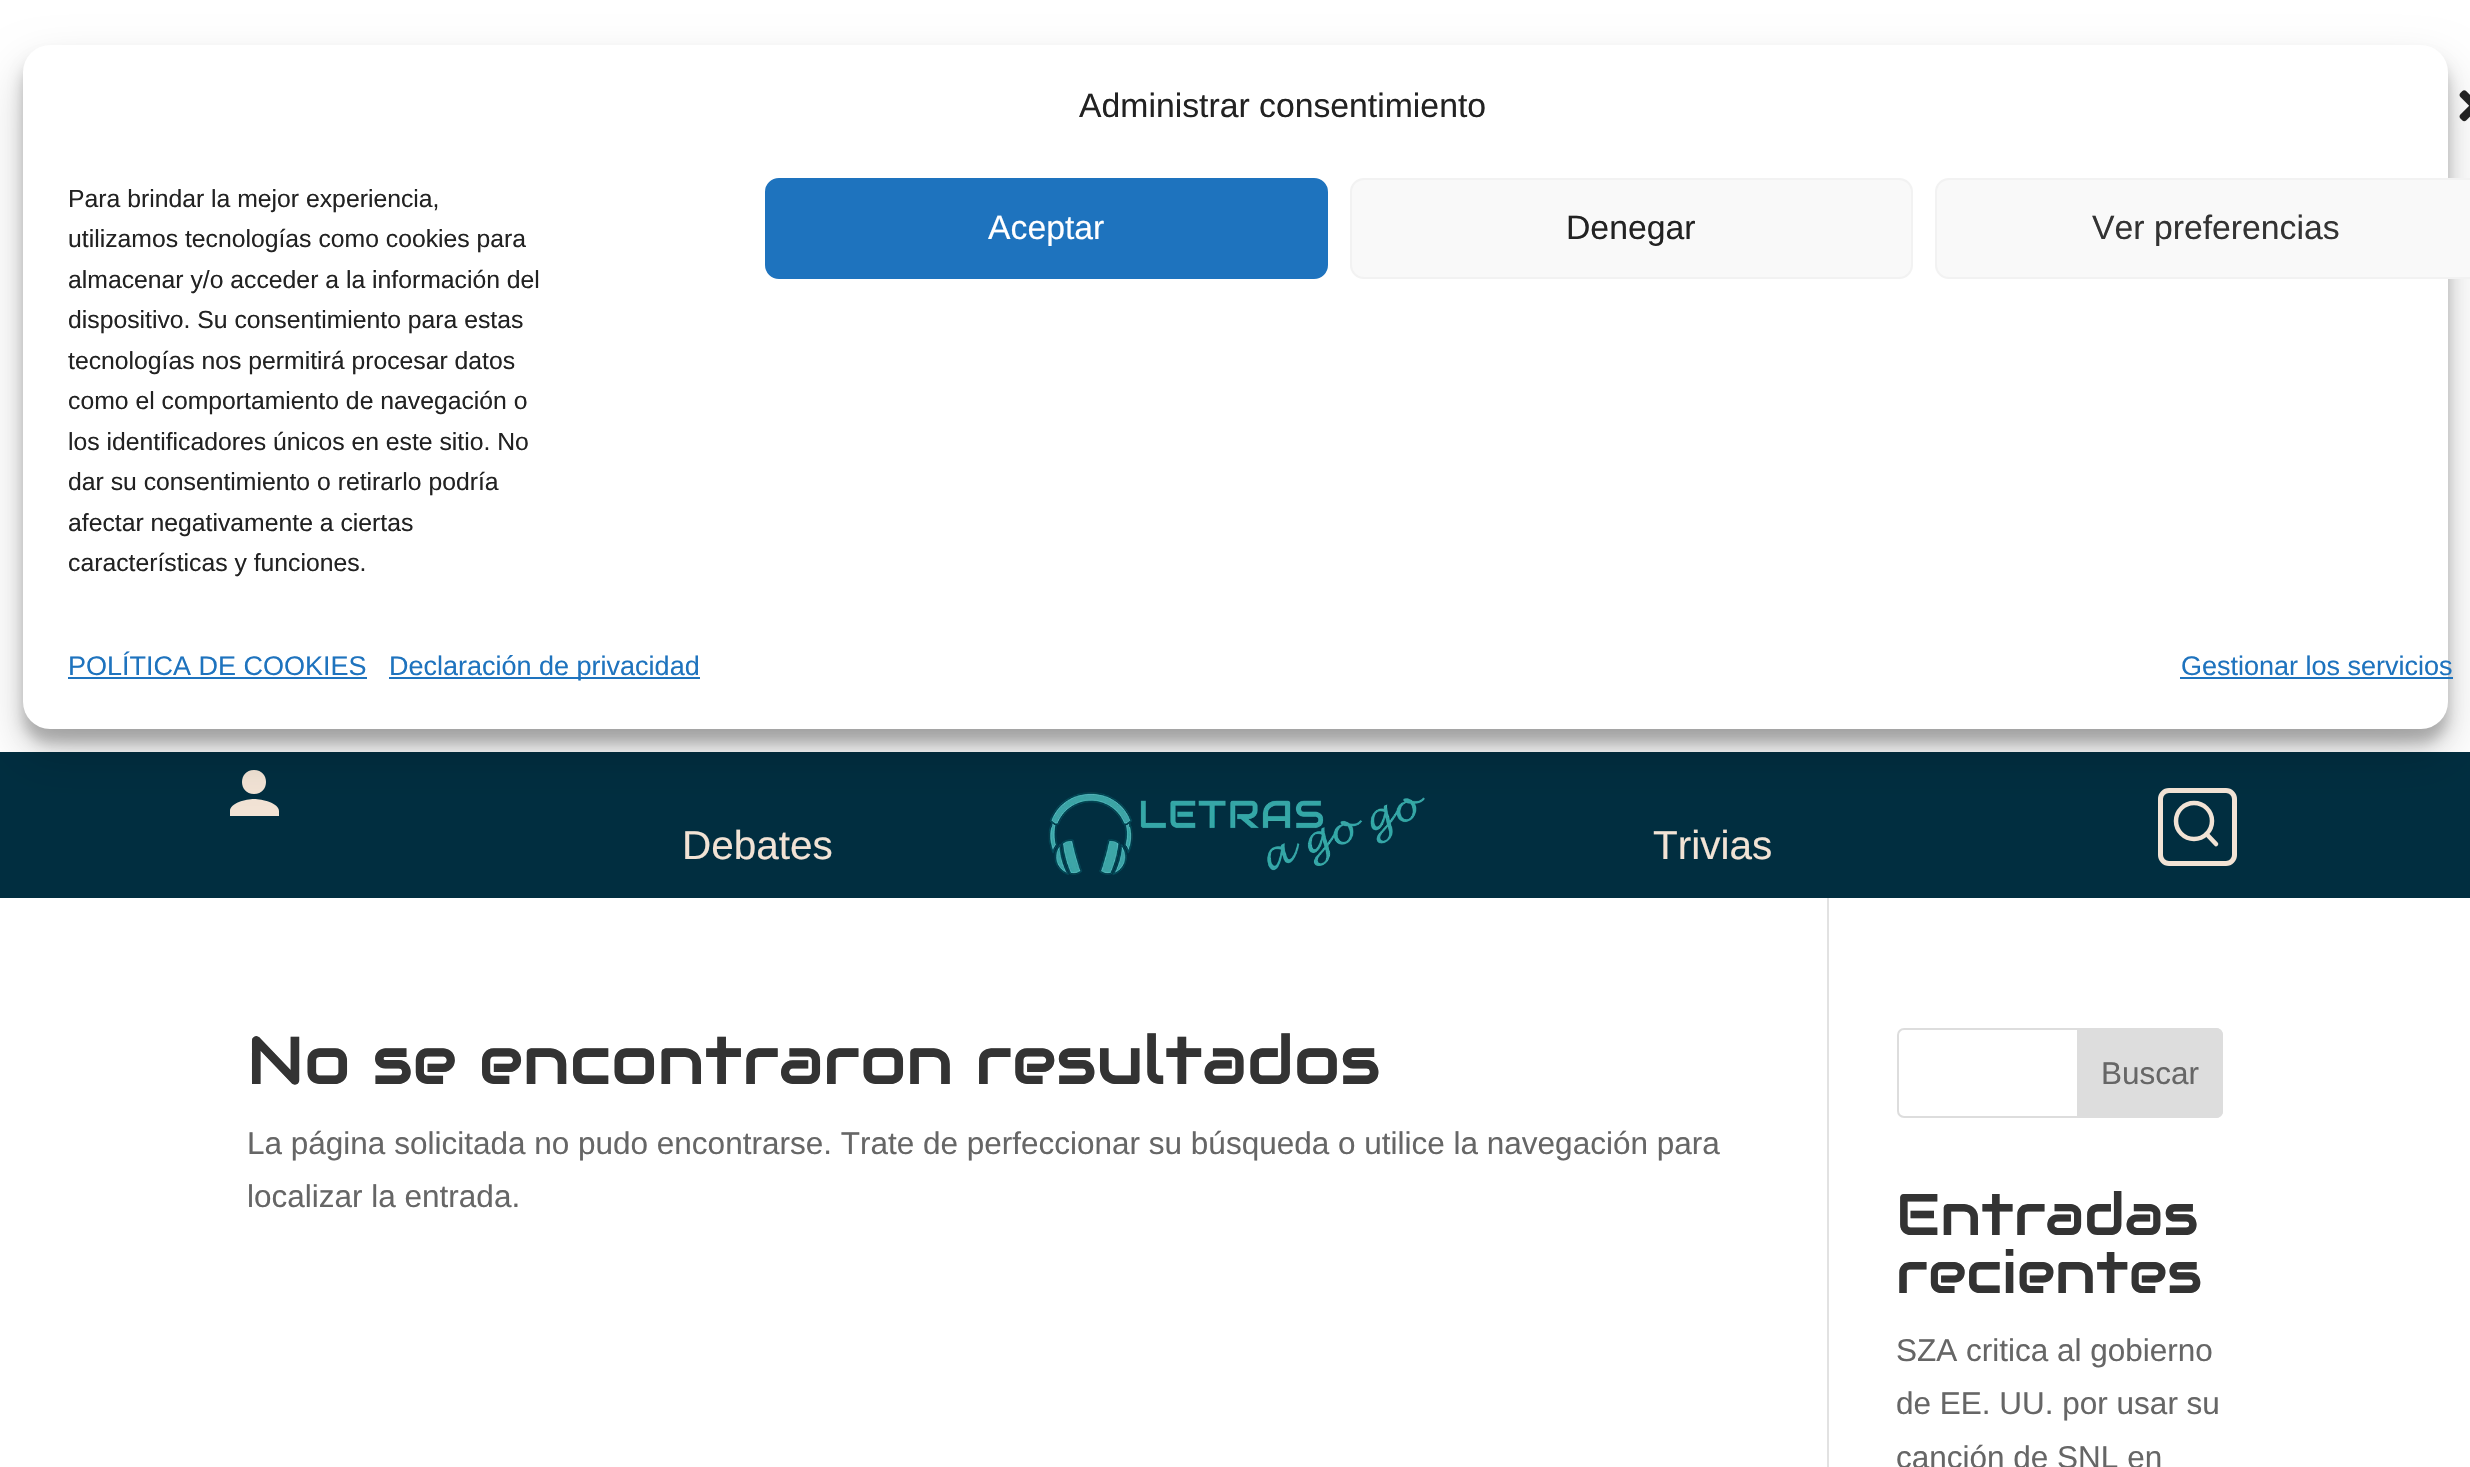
void draw(SkCanvas* canvas) {
  SkPaint paint;
  paint.setAntiAlias(true);
  auto face = [&](const char* family, int weight, float size, bool italic = false) {
    SkFontStyle style(weight, SkFontStyle::kNormal_Width,
      italic ? SkFontStyle::kItalic_Slant : SkFontStyle::kUpright_Slant);
    SkFont result(fontMgr->matchFamilyStyle(family, style), size);
    result.setSubpixel(true);
    return result;
  };
  auto paste = [&](const char* path, float x, float y, float w, float h) {
    auto image = SkImages::DeferredFromEncodedData(SkData::MakeFromFileName(path));
    canvas->drawImageRect(image, SkRect::MakeXYWH(x, y, w, h), SkSamplingOptions());
  };
  auto shape = [&](const char* data, bool evenOdd = false) {
    SkPath result = *SkParsePath::FromSVGString(data);
    if (evenOdd) result.setFillType(SkPathFillType::kEvenOdd);
    return result;
  };
  canvas->clear(0xffffffff);
  paint.setColor(0xff012e40);
  canvas->drawRect(SkRect::MakeXYWH(0, 752, 2470, 146), paint);
  paint.setColor(0x3b000000);
  paint.setMaskFilter(SkMaskFilter::MakeBlur(kNormal_SkBlurStyle, 7));
  canvas->drawRoundRect(SkRect::MakeXYWH(23, 59, 2425, 684), 27, 27, paint);
  paint.setMaskFilter(nullptr);
  paint.setColor(0xfff2e3d5);
  canvas->drawPath(shape("M254 794C270 794 270 770 254 770C238 770 238 794 254 794ZM254 799C246 799 230 803 230 811V816H279V811C279 803 262 799 254 799Z"), paint);
  paste("img/2.png", 1048, 792, 377, 83);
  paint.setStroke(true);
  paint.setStrokeWidth(5);
  canvas->drawRoundRect(SkRect::MakeXYWH(2160.5f, 790.5f, 74, 73), 8.5f, 8.5f, paint);
  paint.setStrokeWidth(4.5f);
  canvas->drawCircle(2194, 821, 18, paint);
  paint.setStroke(false);
  paint.setColor(0x30000000);
  paint.setMaskFilter(SkMaskFilter::MakeBlur(kNormal_SkBlurStyle, 22.5f));
  canvas->drawRoundRect(SkRect::MakeXYWH(23, 68, 2425, 684), 27, 27, paint);
  paint.setMaskFilter(nullptr);
  paint.setColor(0xffffffff);
  canvas->drawRoundRect(SkRect::MakeXYWH(23, 45, 2425, 684), 27, 27, paint);
  paste("img/1.png", 2459, 90, 11, 32);
  paint.setColor(0xff1e73be);
  canvas->drawRoundRect(SkRect::MakeXYWH(766, 179, 561, 99), 13, 13, paint);
  paint.setStroke(true);
  paint.setStrokeWidth(2);
  canvas->drawRoundRect(SkRect::MakeXYWH(766, 179, 561, 99), 13, 13, paint);
  paint.setStroke(false);
  paint.setColor(0xfff9f9f9);
  canvas->drawRoundRect(SkRect::MakeXYWH(1351, 179, 561, 99), 13, 13, paint);
  paint.setStroke(true);
  paint.setColor(0xfff2f2f2);
  canvas->drawRoundRect(SkRect::MakeXYWH(1351, 179, 561, 99), 13, 13, paint);
  paint.setStroke(false);
  paint.setColor(0xfff9f9f9);
  canvas->drawRoundRect(SkRect::MakeXYWH(1936, 179, 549, 99), 13, 13, paint);
  paint.setStroke(true);
  paint.setColor(0xfff2f2f2);
  canvas->drawRoundRect(SkRect::MakeXYWH(1936, 179, 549, 99), 13, 13, paint);
  paint.setStroke(false);
  {
    const struct { float x, y, w, h; SkColor color; } items[] = {
      {68, 677, 299, 2, 0xff1e73be},
      {389, 677, 311, 2, 0xff1e73be},
      {2180, 677, 273, 2, 0xff1e73be},
    };
    for (auto [x, y, w, h, color] : items) {
      paint.setColor(color);
      canvas->drawRect(SkRect::MakeXYWH(x, y, w, h), paint);
    }
  }
  paint.setStroke(true);
  paint.setStrokeWidth(4.5f);
  paint.setStrokeCap(SkPaint::kRound_Cap);
  paint.setStrokeJoin(SkPaint::kRound_Join);
  paint.setColor(0xfff2e3d5);
  canvas->drawPath(shape("M2216 844L2206.5 834"), paint);
  paint.setStroke(false);
  paint.setColor(0xffe2e2e2);
  canvas->drawRect(SkRect::MakeXYWH(1827, 898, 2, 569), paint);
  paint.setStroke(true);
  paint.setStrokeWidth(2);
  paint.setStrokeCap(SkPaint::kButt_Cap);
  paint.setStrokeJoin(SkPaint::kMiter_Join);
  paint.setColor(0xffdddddd);
  canvas->drawRoundRect(SkRect::MakeXYWH(1898, 1029, 324, 88), 6, 6, paint);
  paint.setStroke(false);
  canvas->drawPath(shape("M2078 1029H2216C2219.5 1029 2222 1031.5 2222 1035V1111C2222 1114.5 2219.5 1117 2216 1117H2078Z"), paint);
  paint.setStroke(true);
  canvas->drawPath(shape("M2078 1029H2216C2219.5 1029 2222 1031.5 2222 1035V1111C2222 1114.5 2219.5 1117 2216 1117H2078Z"), paint);
  auto f0 = face("Liberation Sans", 400, 33.75f);
  paint.setStroke(false);
  paint.setColor(0xff222222);
  canvas->drawString("Administrar consentimiento", 1079, 117, f0, paint);
  auto f1 = face("Liberation Sans", 400, 24.75f);
  {
    const struct { const char* s; float x, y; } items[] = {
      {"Para brindar la mejor experiencia,", 68, 207},
      {"utilizamos tecnologías como cookies para", 68, 247},
      {"almacenar y/o acceder a la información del", 68, 288},
      {"dispositivo. Su consentimiento para estas", 68, 328},
      {"tecnologías nos permitirá procesar datos", 68, 369},
      {"como el comportamiento de navegación o", 68, 409},
      {"los identificadores únicos en este sitio. No", 68, 450},
      {"dar su consentimiento o retirarlo podría", 68, 490},
      {"afectar negativamente a ciertas", 68, 531},
      {"características y funciones.", 68, 571},
    };
    for (auto [s, x, y] : items) {
      canvas->drawString(s, x, y, f1, paint);
    }
  }
  paint.setColor(0xffffffff);
  canvas->drawString("Aceptar", 988, 239, f0, paint);
  paint.setColor(0xff222222);
  canvas->drawString("Denegar", 1566, 239, f0, paint);
  paint.setColor(0xff333333);
  canvas->drawString("Ver preferencias", 2092, 239, f0, paint);
  auto f2 = face("Liberation Sans", 400, 27);
  paint.setColor(0xff1e73be);
  {
    const struct { const char* s; float x, y; } items[] = {
      {"POLÍTICA DE COOKIES", 68, 675},
      {"Declaración de privacidad", 389, 675},
      {"Gestionar los servicios", 2181, 675},
    };
    for (auto [s, x, y] : items) {
      canvas->drawString(s, x, y, f2, paint);
    }
  }
  auto f3 = face("Liberation Sans", 400, 40.5f);
  paint.setColor(0xfff2e3d5);
  canvas->drawString("Debates", 682, 859, f3, paint);
  canvas->drawString("Trivias", 1653, 859, f3, paint);
  auto f4 = face("Audiowide", 400, 67.5f);
  paint.setColor(0xff333333);
  canvas->drawString("No se encontraron resultados", 247, 1084, f4, paint);
  auto f5 = face("Liberation Sans", 400, 31.5f);
  paint.setColor(0xff666666);
  {
    const struct { const char* s; float x, y; } items[] = {
      {"La página solicitada no pudo encontrarse. Trate de perfeccionar su búsqueda o utilice la navegación para", 247, 1154},
      {"localizar la entrada.", 247, 1207},
      {"Buscar", 2101, 1084},
    };
    for (auto [s, x, y] : items) {
      canvas->drawString(s, x, y, f5, paint);
    }
  }
  auto f6 = face("Audiowide", 400, 58.5f);
  paint.setColor(0xff333333);
  canvas->drawString("Entradas", 1896, 1235, f6, paint);
  canvas->drawString("recientes", 1896, 1293, f6, paint);
  paint.setColor(0xff666666);
  {
    const struct { const char* s; float x, y; } items[] = {
      {"SZA critica al gobierno", 1896, 1361},
      {"de EE. UU. por usar su", 1896, 1414},
      {"canción de SNL en", 1896, 1468},
    };
    for (auto [s, x, y] : items) {
      canvas->drawString(s, x, y, f5, paint);
    }
  }
}
